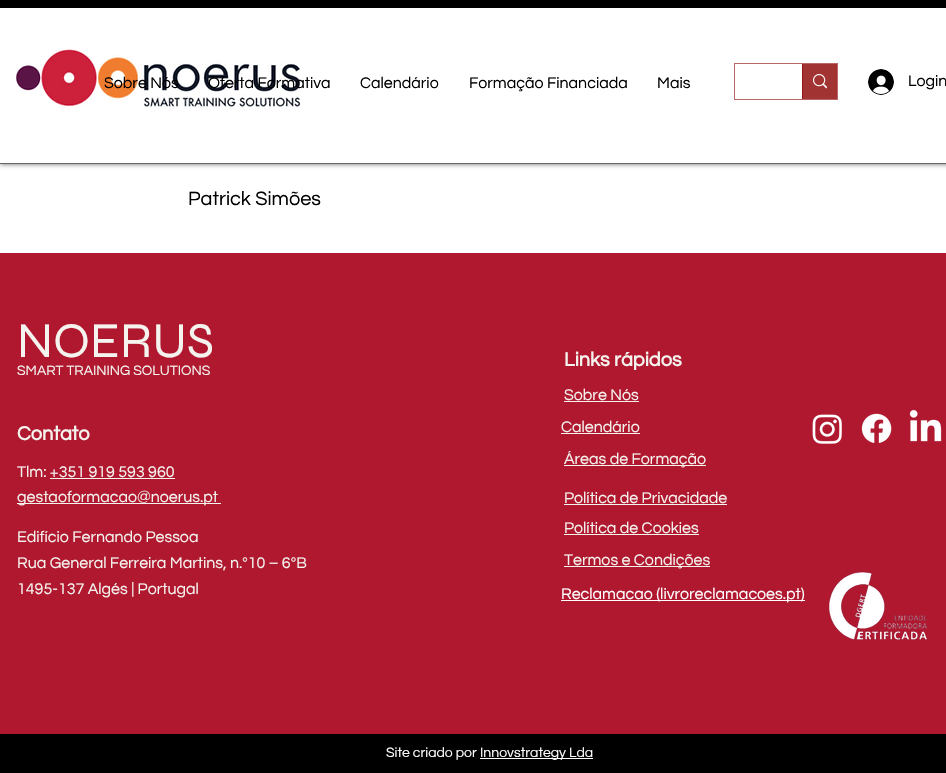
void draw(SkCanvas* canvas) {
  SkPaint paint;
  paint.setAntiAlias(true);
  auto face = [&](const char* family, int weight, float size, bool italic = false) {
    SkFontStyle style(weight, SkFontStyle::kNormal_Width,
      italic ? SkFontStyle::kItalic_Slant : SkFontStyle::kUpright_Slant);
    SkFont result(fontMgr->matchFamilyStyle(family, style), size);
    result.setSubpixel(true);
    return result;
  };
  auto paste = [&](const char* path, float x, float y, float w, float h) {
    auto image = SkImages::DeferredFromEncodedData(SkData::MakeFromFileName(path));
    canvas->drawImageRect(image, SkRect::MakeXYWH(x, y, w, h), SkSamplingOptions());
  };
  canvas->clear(0xffffffff);
  paint.setColor(0x99000000);
  paint.setMaskFilter(SkMaskFilter::MakeBlur(kNormal_SkBlurStyle, 2.5f));
  canvas->drawRect(SkRect::MakeXYWH(0, 0, 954, 164), paint);
  paint.setMaskFilter(nullptr);
  {
    const struct { float x, y, w, h; SkColor color; } items[] = {
      {0, 8, 946, 155, 0xffffffff},
      {0, 163, 946, 1, 0xff666666},
      {0, 0, 946, 8, 0xff000000},
    };
    for (auto [x, y, w, h, color] : items) {
      paint.setColor(color);
      canvas->drawRect(SkRect::MakeXYWH(x, y, w, h), paint);
    }
  }
  paste("img/1.png", 16, 49, 285, 60);
  paint.setStroke(true);
  paint.setStrokeWidth(1);
  paint.setColor(0xffb96666);
  canvas->drawRect(SkRect::MakeXYWH(734.5f, 63.5f, 103, 36), paint);
  paint.setStroke(false);
  paint.setColor(0xffa23333);
  canvas->drawRect(SkRect::MakeXYWH(803, 64, 34, 35), paint);
  paint.setColor(0xff941414);
  canvas->drawRect(SkRect::MakeXYWH(802, 64, 1, 35), paint);
  paste("img/2.png", 813, 74, 14, 15);
  paste("img/3.png", 868, 69, 26, 26);
  {
    const struct { float x, y, w, h; SkColor color; } items[] = {
      {0, 253, 946, 481, 0xffaf182f},
      {50, 478, 125, 1, 0xfff5f3ee},
      {17, 503, 204, 1, 0xfff5f3ee},
      {564, 401, 75, 1, 0xfff5f3ee},
      {561, 433, 79, 1, 0xfff5f3ee},
      {564, 465, 142, 1, 0xfff5f3ee},
      {564, 504, 163, 1, 0xfff5f3ee},
      {564, 534, 135, 1, 0xfff5f3ee},
      {564, 566, 146, 1, 0xfff5f3ee},
      {561, 600, 244, 1, 0xffffffff},
    };
    for (auto [x, y, w, h, color] : items) {
      paint.setColor(color);
      canvas->drawRect(SkRect::MakeXYWH(x, y, w, h), paint);
    }
  }
  paste("img/4.png", 812, 414, 30, 30);
  paste("img/5.png", 861, 413, 31, 30);
  paste("img/6.png", 909, 409, 33, 33);
  paste("img/7.png", 828, 571, 100, 69);
  paint.setColor(0xff000000);
  canvas->drawRect(SkRect::MakeXYWH(0, 734, 946, 39), paint);
  paint.setColor(0xffffffff);
  canvas->drawRect(SkRect::MakeXYWH(480, 758, 113, 1), paint);
  auto f0 = face("Questrial", 400, 16);
  paint.setColor(0xff000000);
  {
    const struct { const char* s; float x, y; } items[] = {
      {"Sobre Nós", 104, 88},
      {"Oferta Formativa", 208, 88},
      {"Calendário", 360, 88},
      {"Formação Financiada", 469, 88},
      {"Mais", 657, 88},
      {"Login", 908, 86},
    };
    for (auto [s, x, y] : items) {
      canvas->drawString(s, x, y, f0, paint);
    }
  }
  auto f1 = face("Questrial", 400, 20);
  canvas->drawString("Patrick Simões", 188, 205, f1, paint);
  auto f2 = face("Syne", 400, 50);
  paint.setColor(0xfff5f3ee);
  canvas->drawString("NOERUS", 17, 357, f2, paint);
  auto f3 = face("Questrial", 400, 14);
  canvas->drawString("SMART TRAINING SOLUTIONS", 17, 375, f3, paint);
  auto f4 = face("Questrial", 700, 20);
  canvas->drawString("Contato", 17, 440, f4, paint);
  {
    const struct { const char* s; float x, y; } items[] = {
      {"Tlm: +351 919 593 960", 17, 477},
      {"gestaoformacao@noerus.pt", 17, 502},
      {"Edifício Fernando Pessoa", 17, 542},
      {"Rua General Ferreira Martins, n.º10 – 6ºB", 17, 568},
      {"1495-137 Algés | Portugal", 17, 594},
    };
    for (auto [s, x, y] : items) {
      canvas->drawString(s, x, y, f0, paint);
    }
  }
  canvas->drawString("Links rápidos", 564, 366, f4, paint);
  {
    const struct { const char* s; float x, y; } items[] = {
      {"Sobre Nós", 564, 400},
      {"Calendário", 561, 432},
      {"Áreas de Formação", 564, 464},
      {"Política de Privacidade", 564, 503},
      {"Política de Cookies", 564, 533},
      {"Termos e Condições", 564, 565},
    };
    for (auto [s, x, y] : items) {
      canvas->drawString(s, x, y, f0, paint);
    }
  }
  paint.setColor(0xffffffff);
  canvas->drawString("Reclamacao (livroreclamacoes.pt)", 561, 599, f0, paint);
  canvas->drawString("Site criado por", 386, 757, f3, paint);
  canvas->drawString("Innovstrategy Lda", 480, 757, f3, paint);
}
